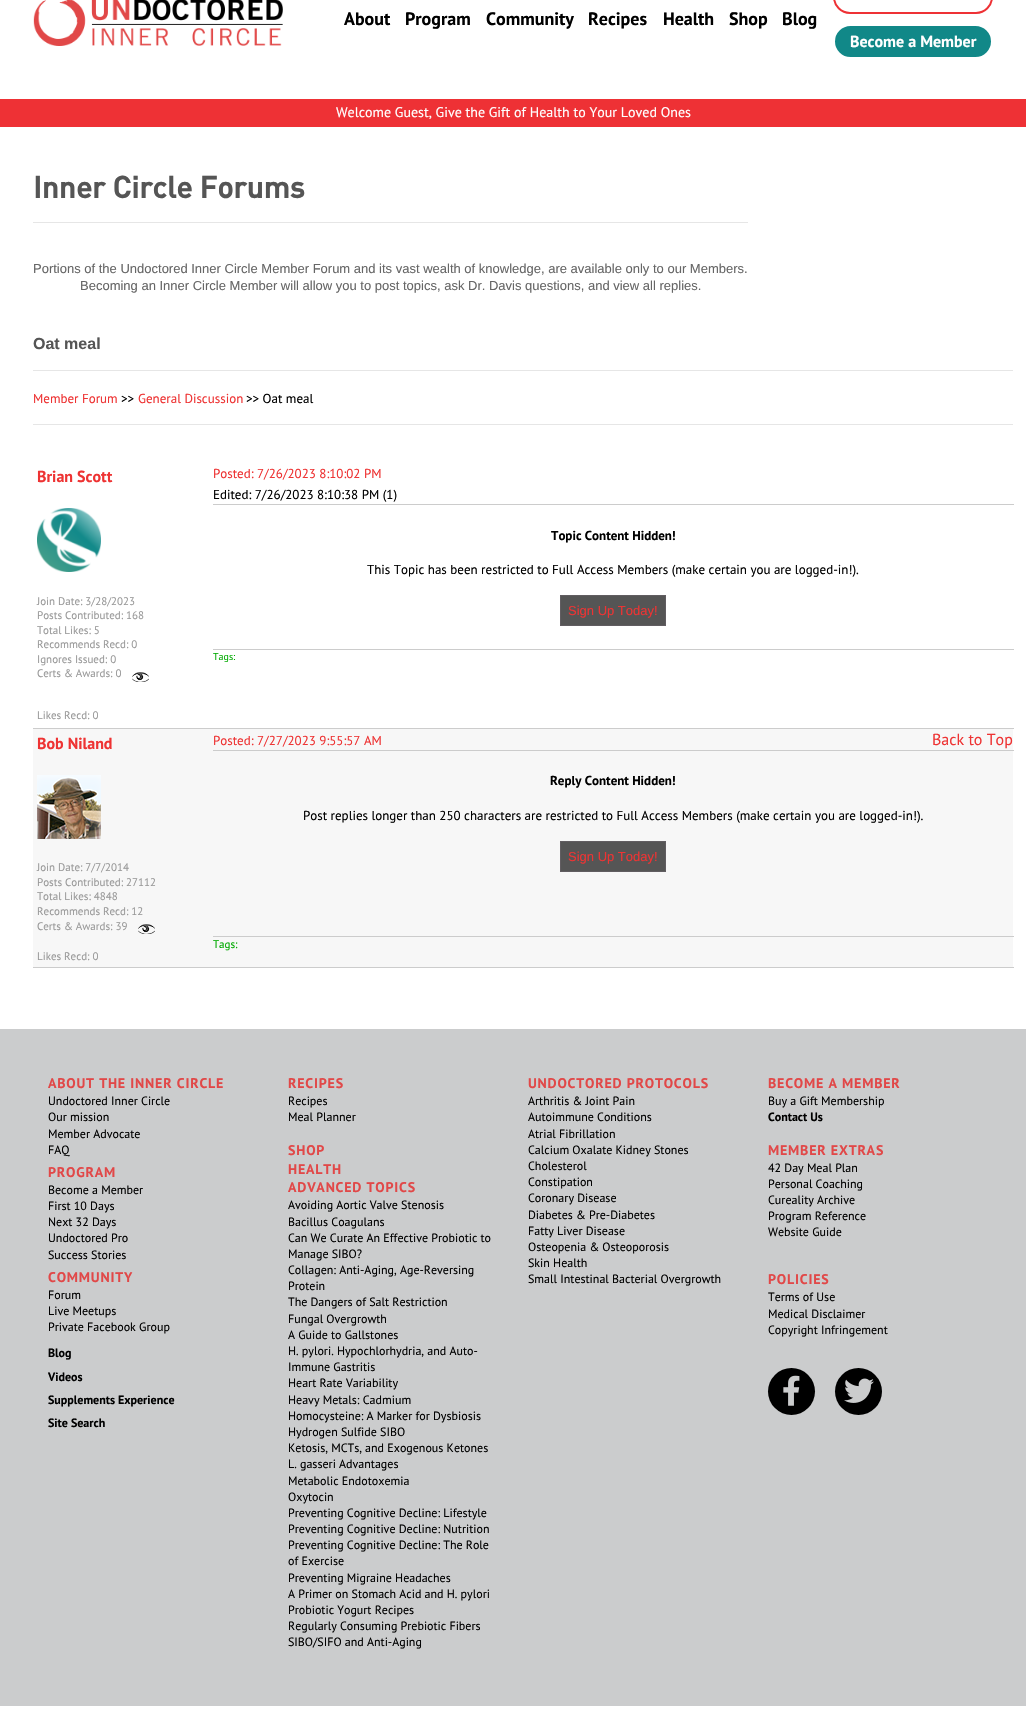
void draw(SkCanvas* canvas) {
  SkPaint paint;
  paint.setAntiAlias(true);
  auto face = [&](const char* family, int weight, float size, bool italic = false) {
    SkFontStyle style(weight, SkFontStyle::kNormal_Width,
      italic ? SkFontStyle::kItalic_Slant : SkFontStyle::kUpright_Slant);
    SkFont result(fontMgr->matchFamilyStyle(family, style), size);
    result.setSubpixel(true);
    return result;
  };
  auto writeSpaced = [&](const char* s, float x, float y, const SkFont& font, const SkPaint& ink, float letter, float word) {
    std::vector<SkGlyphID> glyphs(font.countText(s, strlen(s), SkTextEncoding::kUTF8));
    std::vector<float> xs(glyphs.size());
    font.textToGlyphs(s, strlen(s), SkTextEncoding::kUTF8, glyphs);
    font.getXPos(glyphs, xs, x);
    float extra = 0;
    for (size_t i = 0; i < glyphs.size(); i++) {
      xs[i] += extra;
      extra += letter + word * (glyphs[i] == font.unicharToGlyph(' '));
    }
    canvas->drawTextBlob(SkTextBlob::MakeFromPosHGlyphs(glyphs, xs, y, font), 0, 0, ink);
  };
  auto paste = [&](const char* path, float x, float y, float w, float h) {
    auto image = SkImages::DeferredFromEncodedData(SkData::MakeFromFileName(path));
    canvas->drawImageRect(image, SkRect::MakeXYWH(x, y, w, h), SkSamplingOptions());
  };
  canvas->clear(0xffffffff);
  paste("img/1.png", 33, 0, 250, 46);
  paint.setStroke(true);
  paint.setStrokeWidth(2);
  paint.setColor(0xffee3135);
  canvas->drawRoundRect(SkRect::MakeXYWH(834, -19, 158, 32), 16.5f, 16.5f, paint);
  paint.setStroke(false);
  paint.setColor(0xff118888);
  canvas->drawRoundRect(SkRect::MakeXYWH(834, 25, 158, 33), 16.5f, 16.5f, paint);
  paint.setStroke(true);
  paint.setColor(0xffffffff);
  canvas->drawRoundRect(SkRect::MakeXYWH(834, 25, 158, 33), 16.5f, 16.5f, paint);
  paint.setStroke(false);
  {
    const struct { float x, y, w, h; SkColor color; } items[] = {
      {0, 99, 1026, 28, 0xffee3135},
      {33, 222, 715, 1, 0xffe6e6e6},
      {33, 370, 980, 1, 0xffe6e6e6},
      {33, 424, 980, 1, 0xffe6e6e6},
    };
    for (auto [x, y, w, h, color] : items) {
      paint.setColor(color);
      canvas->drawRect(SkRect::MakeXYWH(x, y, w, h), paint);
    }
  }
  paste("img/2.png", 37, 508, 64, 64);
  paste("img/3.png", 132, 672, 17, 10);
  paint.setColor(0xffcccccc);
  canvas->drawRect(SkRect::MakeXYWH(33, 728, 981, 1), paint);
  canvas->drawRect(SkRect::MakeXYWH(213, 504, 801, 1), paint);
  paint.setColor(0xff555555);
  canvas->drawRect(SkRect::MakeXYWH(560.5f, 595.5f, 105, 30), paint);
  paint.setStroke(true);
  paint.setStrokeWidth(1);
  paint.setColor(0xff615d61);
  canvas->drawRect(SkRect::MakeXYWH(560.5f, 595.5f, 105, 30), paint);
  paint.setStroke(false);
  paint.setColor(0xffcccccc);
  canvas->drawRect(SkRect::MakeXYWH(213, 649, 801, 1), paint);
  paint.setColor(0xfff7f7f7);
  canvas->drawRect(SkRect::MakeXYWH(33, 729, 980, 238), paint);
  paste("img/4.png", 37, 775, 64, 64);
  paste("img/5.png", 138, 924, 17, 10);
  paint.setColor(0xffcccccc);
  canvas->drawRect(SkRect::MakeXYWH(33, 967, 981, 1), paint);
  canvas->drawRect(SkRect::MakeXYWH(213, 750, 801, 1), paint);
  paint.setColor(0xff555555);
  canvas->drawRect(SkRect::MakeXYWH(560.5f, 841.5f, 105, 30), paint);
  paint.setStroke(true);
  paint.setColor(0xff615d61);
  canvas->drawRect(SkRect::MakeXYWH(560.5f, 841.5f, 105, 30), paint);
  paint.setStroke(false);
  paint.setColor(0xffcccccc);
  canvas->drawRect(SkRect::MakeXYWH(213, 936, 801, 1), paint);
  paint.setColor(0xffcbcccd);
  canvas->drawRect(SkRect::MakeXYWH(0, 1029, 1026, 677), paint);
  paint.setColor(0xff000000);
  canvas->drawCircle(791.5f, 1391.5f, 23.5f, paint);
  paste("img/6.png", 783, 1375, 17, 31);
  canvas->drawCircle(858.5f, 1391.5f, 23.5f, paint);
  paste("img/7.png", 844, 1378, 30, 25);
  auto f0 = face("PT Sans", 700, 18);
  {
    const struct { const char* s; float x, y; } items[] = {
      {"About", 344, 25},
      {"Program", 405, 25},
      {"Community", 486, 25},
      {"Recipes", 588, 25},
      {"Health", 663, 25},
      {"Shop", 729, 25},
      {"Blog", 782, 25},
    };
    for (auto [s, x, y] : items) {
      canvas->drawString(s, x, y, f0, paint);
    }
  }
  auto f1 = face("PT Sans", 700, 16);
  paint.setColor(0xffffffff);
  canvas->drawString("Become a Member", 850, 47, f1, paint);
  auto f2 = face("PT Sans", 400, 14);
  canvas->drawString("Welcome Guest, Give the Gift of Health to Your Loved Ones", 336, 117, f2, paint);
  auto f3 = face("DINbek", 700, 30);
  paint.setColor(0xff555555);
  canvas->drawString("Inner Circle Forums", 33, 198, f3, paint);
  auto f4 = face("Liberation Sans", 400, 13);
  paint.setColor(0xff666666);
  canvas->drawString("Portions of the Undoctored Inner Circle Member Forum and its vast wealth of knowledge, are available only to our Members.", 33, 273, f4, paint);
  canvas->drawString("Becoming an Inner Circle Member will allow you to post topics, ask Dr. Davis questions, and view all replies.", 80, 290, f4, paint);
  auto f5 = face("Liberation Sans", 700, 16);
  paint.setColor(0xff555555);
  canvas->drawString("Oat meal", 33, 349, f5, paint);
  auto f6 = face("PT Sans", 400, 13);
  paint.setColor(0xffee3333);
  canvas->drawString("Member Forum", 33, 403, f6, paint);
  paint.setColor(0xff000000);
  canvas->drawString(">>", 121, 403, f6, paint);
  paint.setColor(0xffee3333);
  canvas->drawString("General Discussion", 138, 403, f6, paint);
  paint.setColor(0xff000000);
  canvas->drawString(">> Oat meal", 246, 403, f6, paint);
  paint.setColor(0xffee3333);
  canvas->drawString("Brian Scott", 37, 482, f1, paint);
  auto f7 = face("PT Sans", 400, 11);
  paint.setColor(0xff999999);
  {
    const struct { const char* s; float x, y; } items[] = {
      {"Join Date: 3/28/2023", 37, 605},
      {"Posts Contributed: 168", 37, 619},
      {"Total Likes: 5", 37, 634},
      {"Recommends Recd: 0", 37, 648},
      {"Ignores Issued: 0", 37, 663},
      {"Certs & Awards: 0", 37, 677},
      {"Likes Recd: 0", 37, 719},
    };
    for (auto [s, x, y] : items) {
      canvas->drawString(s, x, y, f7, paint);
    }
  }
  paint.setColor(0xffee3333);
  canvas->drawString("Posted: 7/26/2023 8:10:02 PM", 213, 478, f6, paint);
  paint.setColor(0xff000000);
  canvas->drawString("Edited: 7/26/2023 8:10:38 PM (1)", 213, 499, f6, paint);
  auto f8 = face("PT Sans", 700, 13);
  canvas->drawString("Topic Content Hidden!", 551, 540, f8, paint);
  canvas->drawString("This Topic has been restricted to Full Access Members (make certain you are logged-in!).", 367, 574, f6, paint);
  paint.setColor(0xffee3333);
  canvas->drawString("Sign Up Today!", 568, 615, f4, paint);
  auto f9 = face("PT Sans", 400, 10);
  paint.setColor(0xff00aa00);
  canvas->drawString("Tags:", 213, 660, f9, paint);
  paint.setColor(0xffee3333);
  canvas->drawString("Bob Niland", 37, 749, f1, paint);
  paint.setColor(0xff999999);
  {
    const struct { const char* s; float x, y; } items[] = {
      {"Join Date: 7/7/2014", 37, 871},
      {"Posts Contributed: 27112", 37, 886},
      {"Total Likes: 4848", 37, 900},
      {"Recommends Recd: 12", 37, 915},
      {"Certs & Awards: 39", 37, 930},
      {"Likes Recd: 0", 37, 960},
    };
    for (auto [s, x, y] : items) {
      canvas->drawString(s, x, y, f7, paint);
    }
  }
  paint.setColor(0xffee3333);
  canvas->drawString("Posted: 7/27/2023 9:55:57 AM", 213, 745, f6, paint);
  auto f10 = face("PT Sans", 400, 16);
  canvas->drawString("Back to Top", 932, 745, f10, paint);
  paint.setColor(0xff000000);
  canvas->drawString("Reply Content Hidden!", 550, 785, f8, paint);
  canvas->drawString("Post replies longer than 250 characters are restricted to Full Access Members (make certain you are logged-in!).", 303, 820, f6, paint);
  paint.setColor(0xffee3333);
  canvas->drawString("Sign Up Today!", 568, 861, f4, paint);
  paint.setColor(0xff00aa00);
  canvas->drawString("Tags:", 213, 948, f7, paint);
  auto f11 = face("PT Sans", 700, 14);
  paint.setColor(0xffe14848);
  writeSpaced("ABOUT THE INNER CIRCLE", 48, 1088, f11, paint, 0.8f, 0);
  auto f12 = face("PT Sans", 400, 12);
  paint.setColor(0xff000000);
  {
    const struct { const char* s; float x, y; } items[] = {
      {"Undoctored Inner Circle", 48, 1105},
      {"Our mission", 48, 1121},
      {"Member Advocate", 48, 1138},
      {"FAQ", 48, 1154},
    };
    for (auto [s, x, y] : items) {
      canvas->drawString(s, x, y, f12, paint);
    }
  }
  paint.setColor(0xffe14848);
  writeSpaced("PROGRAM", 48, 1177, f11, paint, 0.8f, 0);
  paint.setColor(0xff000000);
  {
    const struct { const char* s; float x, y; } items[] = {
      {"Become a Member", 48, 1194},
      {"First 10 Days", 48, 1210},
      {"Next 32 Days", 48, 1226},
      {"Undoctored Pro", 48, 1242},
      {"Success Stories", 48, 1259},
    };
    for (auto [s, x, y] : items) {
      canvas->drawString(s, x, y, f12, paint);
    }
  }
  paint.setColor(0xffe14848);
  writeSpaced("COMMUNITY", 48, 1282, f11, paint, 0.8f, 0);
  paint.setColor(0xff000000);
  {
    const struct { const char* s; float x, y; } items[] = {
      {"Forum", 48, 1299},
      {"Live Meetups", 48, 1315},
      {"Private Facebook Group", 48, 1331},
    };
    for (auto [s, x, y] : items) {
      canvas->drawString(s, x, y, f12, paint);
    }
  }
  auto f13 = face("PT Sans", 700, 12);
  {
    const struct { const char* s; float x, y; } items[] = {
      {"Blog", 48, 1357},
      {"Videos", 48, 1381},
      {"Supplements Experience", 48, 1404},
      {"Site Search", 48, 1427},
    };
    for (auto [s, x, y] : items) {
      canvas->drawString(s, x, y, f13, paint);
    }
  }
  paint.setColor(0xffe14848);
  writeSpaced("RECIPES", 288, 1088, f11, paint, 0.8f, 0);
  paint.setColor(0xff000000);
  canvas->drawString("Recipes", 288, 1105, f12, paint);
  canvas->drawString("Meal Planner", 288, 1121, f12, paint);
  paint.setColor(0xffe14848);
  {
    const struct { const char* s; float x, y; } items[] = {
      {"SHOP", 288, 1155},
      {"HEALTH", 288, 1174},
      {"ADVANCED TOPICS", 288, 1192},
    };
    for (auto [s, x, y] : items) {
      writeSpaced(s, x, y, f11, paint, 0.8f, 0);
    }
  }
  paint.setColor(0xff000000);
  {
    const struct { const char* s; float x, y; } items[] = {
      {"Avoiding Aortic Valve Stenosis", 288, 1209},
      {"Bacillus Coagulans", 288, 1226},
      {"Can We Curate An Effective Probiotic to", 288, 1242},
      {"Manage SIBO?", 288, 1258},
      {"Collagen: Anti-Aging, Age-Reversing", 288, 1274},
      {"Protein", 288, 1290},
      {"The Dangers of Salt Restriction", 288, 1306},
      {"Fungal Overgrowth", 288, 1323},
      {"A Guide to Gallstones", 288, 1339},
      {"H. pylori. Hypochlorhydria, and Auto-", 288, 1355},
      {"Immune Gastritis", 288, 1371},
      {"Heart Rate Variability", 288, 1387},
      {"Heavy Metals: Cadmium", 288, 1404},
      {"Homocysteine: A Marker for Dysbiosis", 288, 1420},
      {"Hydrogen Sulfide SIBO", 288, 1436},
      {"Ketosis, MCTs, and Exogenous Ketones", 288, 1452},
      {"L. gasseri Advantages", 288, 1468},
      {"Metabolic Endotoxemia", 288, 1485},
      {"Oxytocin", 288, 1501},
      {"Preventing Cognitive Decline: Lifestyle", 288, 1517},
      {"Preventing Cognitive Decline: Nutrition", 288, 1533},
      {"Preventing Cognitive Decline: The Role", 288, 1549},
      {"of Exercise", 288, 1565},
      {"Preventing Migraine Headaches", 288, 1582},
      {"A Primer on Stomach Acid and H. pylori", 288, 1598},
      {"Probiotic Yogurt Recipes", 288, 1614},
      {"Regularly Consuming Prebiotic Fibers", 288, 1630},
      {"SIBO/SIFO and Anti-Aging", 288, 1646},
    };
    for (auto [s, x, y] : items) {
      canvas->drawString(s, x, y, f12, paint);
    }
  }
  paint.setColor(0xffe14848);
  writeSpaced("UNDOCTORED PROTOCOLS", 528, 1088, f11, paint, 0.8f, 0);
  paint.setColor(0xff000000);
  {
    const struct { const char* s; float x, y; } items[] = {
      {"Arthritis & Joint Pain", 528, 1105},
      {"Autoimmune Conditions", 528, 1121},
      {"Atrial Fibrillation", 528, 1138},
      {"Calcium Oxalate Kidney Stones", 528, 1154},
      {"Cholesterol", 528, 1170},
      {"Constipation", 528, 1186},
      {"Coronary Disease", 528, 1202},
      {"Diabetes & Pre-Diabetes", 528, 1219},
      {"Fatty Liver Disease", 528, 1235},
      {"Osteopenia & Osteoporosis", 528, 1251},
      {"Skin Health", 528, 1267},
      {"Small Intestinal Bacterial Overgrowth", 528, 1283},
    };
    for (auto [s, x, y] : items) {
      canvas->drawString(s, x, y, f12, paint);
    }
  }
  paint.setColor(0xffe14848);
  writeSpaced("BECOME A MEMBER", 768, 1088, f11, paint, 0.8f, 0);
  paint.setColor(0xff000000);
  canvas->drawString("Buy a Gift Membership", 768, 1105, f12, paint);
  canvas->drawString("Contact Us", 768, 1121, f13, paint);
  paint.setColor(0xffe14848);
  writeSpaced("MEMBER EXTRAS", 768, 1155, f11, paint, 0.8f, 0);
  paint.setColor(0xff000000);
  {
    const struct { const char* s; float x, y; } items[] = {
      {"42 Day Meal Plan", 768, 1172},
      {"Personal Coaching", 768, 1188},
      {"Cureality Archive", 768, 1204},
      {"Program Reference", 768, 1220},
      {"Website Guide", 768, 1236},
    };
    for (auto [s, x, y] : items) {
      canvas->drawString(s, x, y, f12, paint);
    }
  }
  paint.setColor(0xffe14848);
  writeSpaced("POLICIES", 768, 1284, f11, paint, 0.8f, 0);
  paint.setColor(0xff000000);
  {
    const struct { const char* s; float x, y; } items[] = {
      {"Terms of Use", 768, 1301},
      {"Medical Disclaimer", 768, 1318},
      {"Copyright Infringement", 768, 1334},
    };
    for (auto [s, x, y] : items) {
      canvas->drawString(s, x, y, f12, paint);
    }
  }
}
